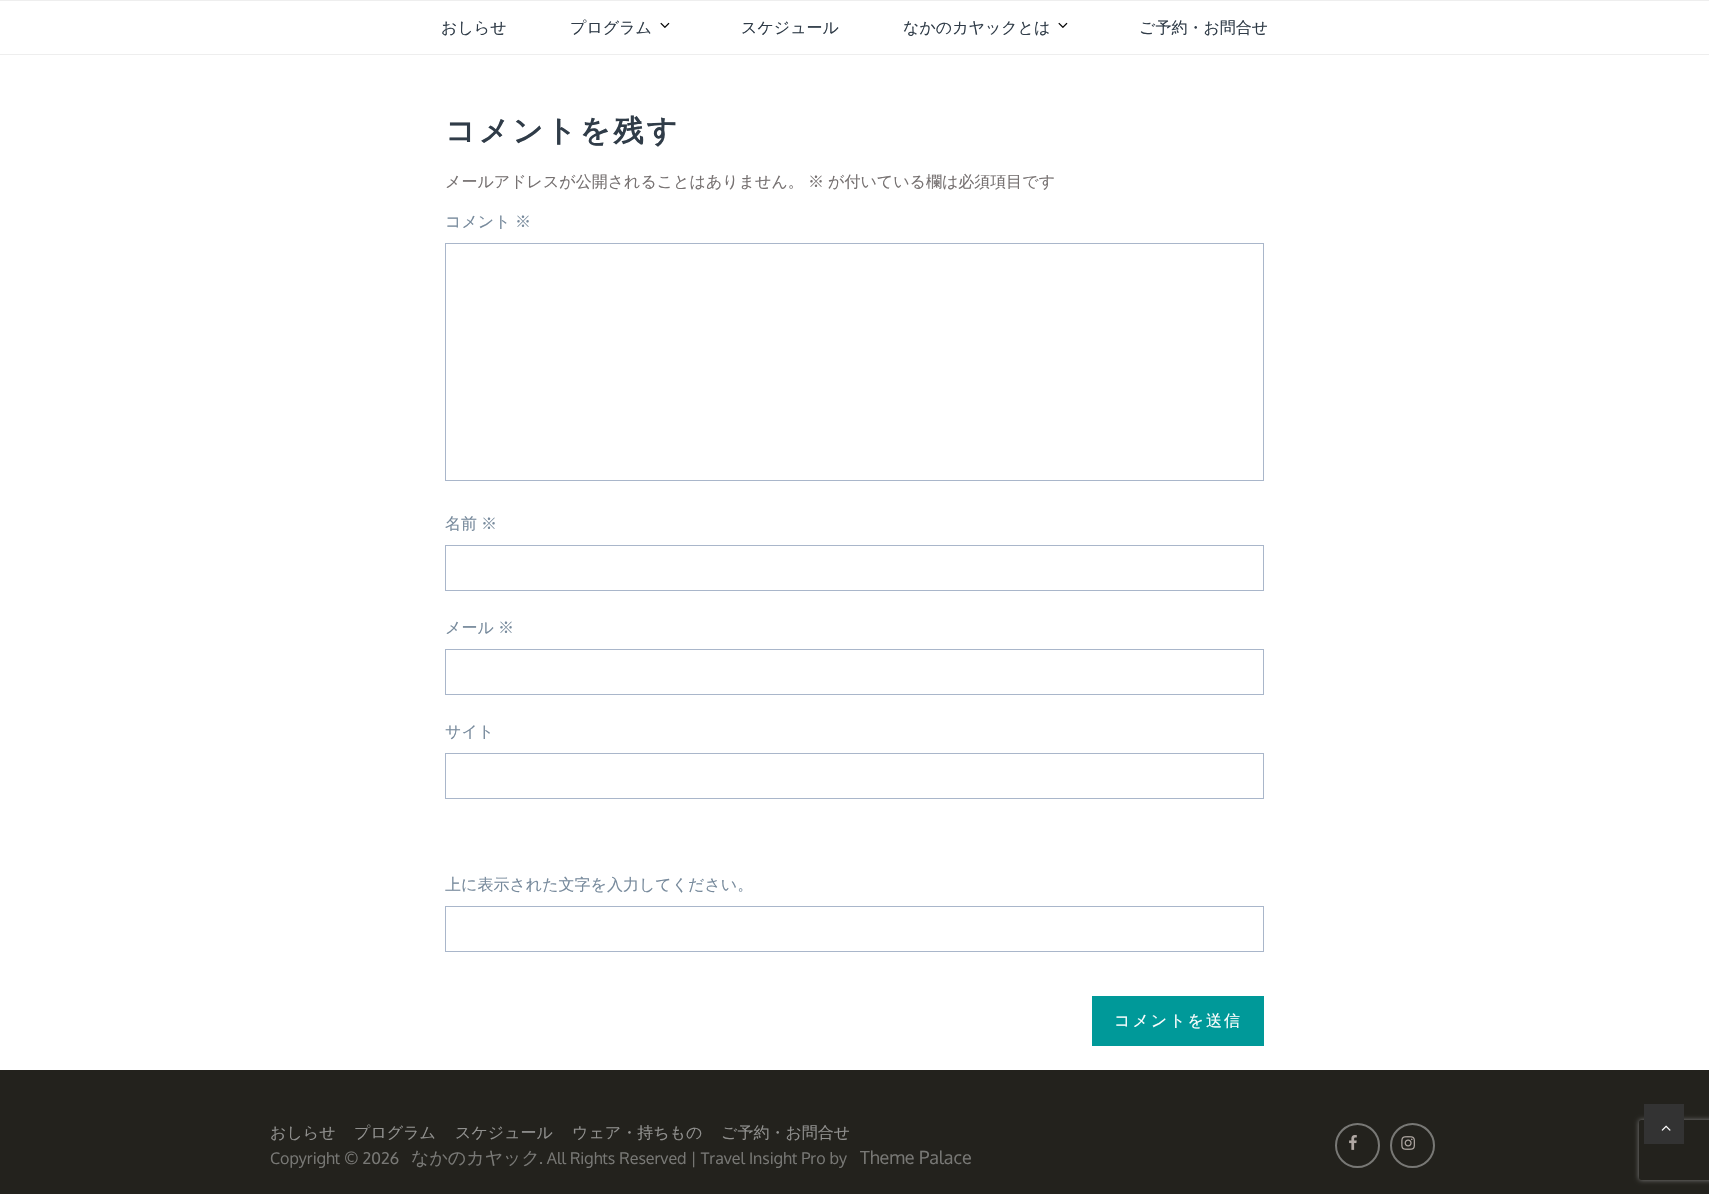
void draw(SkCanvas* canvas) {
  SkPaint paint;
  paint.setAntiAlias(true);
  auto face = [&](const char* family, int weight, float size, bool italic = false) {
    SkFontStyle style(weight, SkFontStyle::kNormal_Width,
      italic ? SkFontStyle::kItalic_Slant : SkFontStyle::kUpright_Slant);
    SkFont result(fontMgr->matchFamilyStyle(family, style), size);
    result.setSubpixel(true);
    return result;
  };
  auto writeSpaced = [&](const char* s, float x, float y, const SkFont& font, const SkPaint& ink, float letter, float word) {
    std::vector<SkGlyphID> glyphs(font.countText(s, strlen(s), SkTextEncoding::kUTF8));
    std::vector<float> xs(glyphs.size());
    font.textToGlyphs(s, strlen(s), SkTextEncoding::kUTF8, glyphs);
    font.getXPos(glyphs, xs, x);
    float extra = 0;
    for (size_t i = 0; i < glyphs.size(); i++) {
      xs[i] += extra;
      extra += letter + word * (glyphs[i] == font.unicharToGlyph(' '));
    }
    canvas->drawTextBlob(SkTextBlob::MakeFromPosHGlyphs(glyphs, xs, y, font), 0, 0, ink);
  };
  auto paste = [&](const char* path, float x, float y, float w, float h) {
    auto image = SkImages::DeferredFromEncodedData(SkData::MakeFromFileName(path));
    canvas->drawImageRect(image, SkRect::MakeXYWH(x, y, w, h), SkSamplingOptions());
  };
  auto shape = [&](const char* data, bool evenOdd = false) {
    SkPath result = *SkParsePath::FromSVGString(data);
    if (evenOdd) result.setFillType(SkPathFillType::kEvenOdd);
    return result;
  };
  canvas->clear(0xffffffff);
  paint.setColor(0xffeeeeee);
  canvas->drawRect(SkRect::MakeXYWH(0, 0, 1709, 1), paint);
  canvas->drawRect(SkRect::MakeXYWH(0, 54, 1709, 1), paint);
  paste("img/1.png", 660, 22, 10, 6);
  paste("img/1.png", 1058, 22, 10, 6);
  paint.setStroke(true);
  paint.setStrokeWidth(1);
  paint.setColor(0xffa9b6ca);
  canvas->drawRect(SkRect::MakeXYWH(445.5f, 243.5f, 818, 237), paint);
  canvas->drawRect(SkRect::MakeXYWH(445.5f, 545.5f, 818, 45), paint);
  canvas->drawRect(SkRect::MakeXYWH(445.5f, 649.5f, 818, 45), paint);
  canvas->drawRect(SkRect::MakeXYWH(445.5f, 753.5f, 818, 45), paint);
  canvas->drawRect(SkRect::MakeXYWH(445.5f, 906.5f, 818, 45), paint);
  paint.setStroke(false);
  paint.setColor(0xff009999);
  canvas->drawRect(SkRect::MakeXYWH(1092, 996, 172, 50), paint);
  paint.setColor(0xff23221d);
  canvas->drawRect(SkRect::MakeXYWH(0, 1070, 1709, 124), paint);
  paint.setStroke(true);
  paint.setStrokeWidth(2);
  paint.setColor(0xff787875);
  canvas->drawCircle(1357.5f, 1145.5f, 21.5f, paint);
  paste("img/2.png", 1349, 1135, 8, 15);
  canvas->drawCircle(1412.5f, 1145.5f, 21.5f, paint);
  paste("img/3.png", 1401, 1136, 14, 14);
  canvas->save();
  canvas->clipPath(shape("M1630 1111H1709V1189H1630ZM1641 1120H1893C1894 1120 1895 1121 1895 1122V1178C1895 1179 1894 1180 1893 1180H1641C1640 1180 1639 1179 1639 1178V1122C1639 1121 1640 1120 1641 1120Z", true), true);
  paint.setStroke(false);
  paint.setColor(0xff808080);
  paint.setMaskFilter(SkMaskFilter::MakeBlur(kNormal_SkBlurStyle, 2.5f));
  canvas->drawRoundRect(SkRect::MakeXYWH(1639, 1120, 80, 60), 2, 2, paint);
  paint.setMaskFilter(nullptr);
  canvas->restore();
  paint.setColor(0xff333333);
  canvas->drawRect(SkRect::MakeXYWH(1644, 1104, 40, 40), paint);
  paste("img/4.png", 1661, 1125, 10, 6);
  auto f0 = face("WenQuanYi Zen Hei", 500, 16);
  paint.setColor(0xff303c48);
  {
    const struct { const char* s; float x, y; } items[] = {
      {"おしらせ", 441, 33},
      {"プログラム", 570, 33},
      {"スケジュール", 741, 33},
      {"なかのカヤックとは", 903, 33},
      {"ご予約・お問合せ", 1139, 33},
    };
    for (auto [s, x, y] : items) {
      canvas->drawString(s, x, y, f0, paint);
    }
  }
  auto f1 = face("WenQuanYi Zen Hei", 700, 30);
  writeSpaced("コメントを残す", 445, 141, f1, paint, 3, 0);
  paint.setColor(0xff767171);
  {
    const struct { const char* s; float x, y; } items[] = {
      {"メールアドレスが公開されることはありません。", 445, 187},
      {"※", 808, 187},
      {"が付いている欄は必須項目です", 828, 187},
    };
    for (auto [s, x, y] : items) {
      canvas->drawString(s, x, y, f0, paint);
    }
  }
  paint.setColor(0xff778a9c);
  {
    const struct { const char* s; float x, y; } items[] = {
      {"コメント", 445, 227},
      {"※", 515, 227},
      {"名前", 445, 529},
      {"※", 481, 529},
      {"メール", 445, 633},
      {"※", 498, 633},
      {"サイト", 445, 737},
      {"上に表示された文字を入力してください。", 445, 890},
    };
    for (auto [s, x, y] : items) {
      canvas->drawString(s, x, y, f0, paint);
    }
  }
  paint.setColor(0xffffffff);
  writeSpaced("コメントを送信", 1114, 1026, f0, paint, 2, 0);
  paint.setColor(0xff90908e);
  {
    const struct { const char* s; float x, y; } items[] = {
      {"おしらせ", 270, 1138},
      {"プログラム", 354, 1138},
      {"スケジュール", 455, 1138},
      {"ウェア・持ちもの", 572, 1138},
      {"ご予約・お問合せ", 721, 1138},
    };
    for (auto [s, x, y] : items) {
      canvas->drawString(s, x, y, f0, paint);
    }
  }
  auto f2 = face("Oxygen", 400, 16);
  paint.setColor(0xff787875);
  canvas->drawString("Copyright © 2026", 270, 1164, f2, paint);
  auto f3 = face("WenQuanYi Zen Hei", 500, 18);
  canvas->drawString("なかのカヤック", 411, 1164, f3, paint);
  canvas->drawString(". All Rights Reserved | Travel Insight Pro by", 539, 1164, f2, paint);
  auto f4 = face("Oxygen", 400, 18);
  canvas->drawString("Theme Palace", 860, 1164, f4, paint);
}
